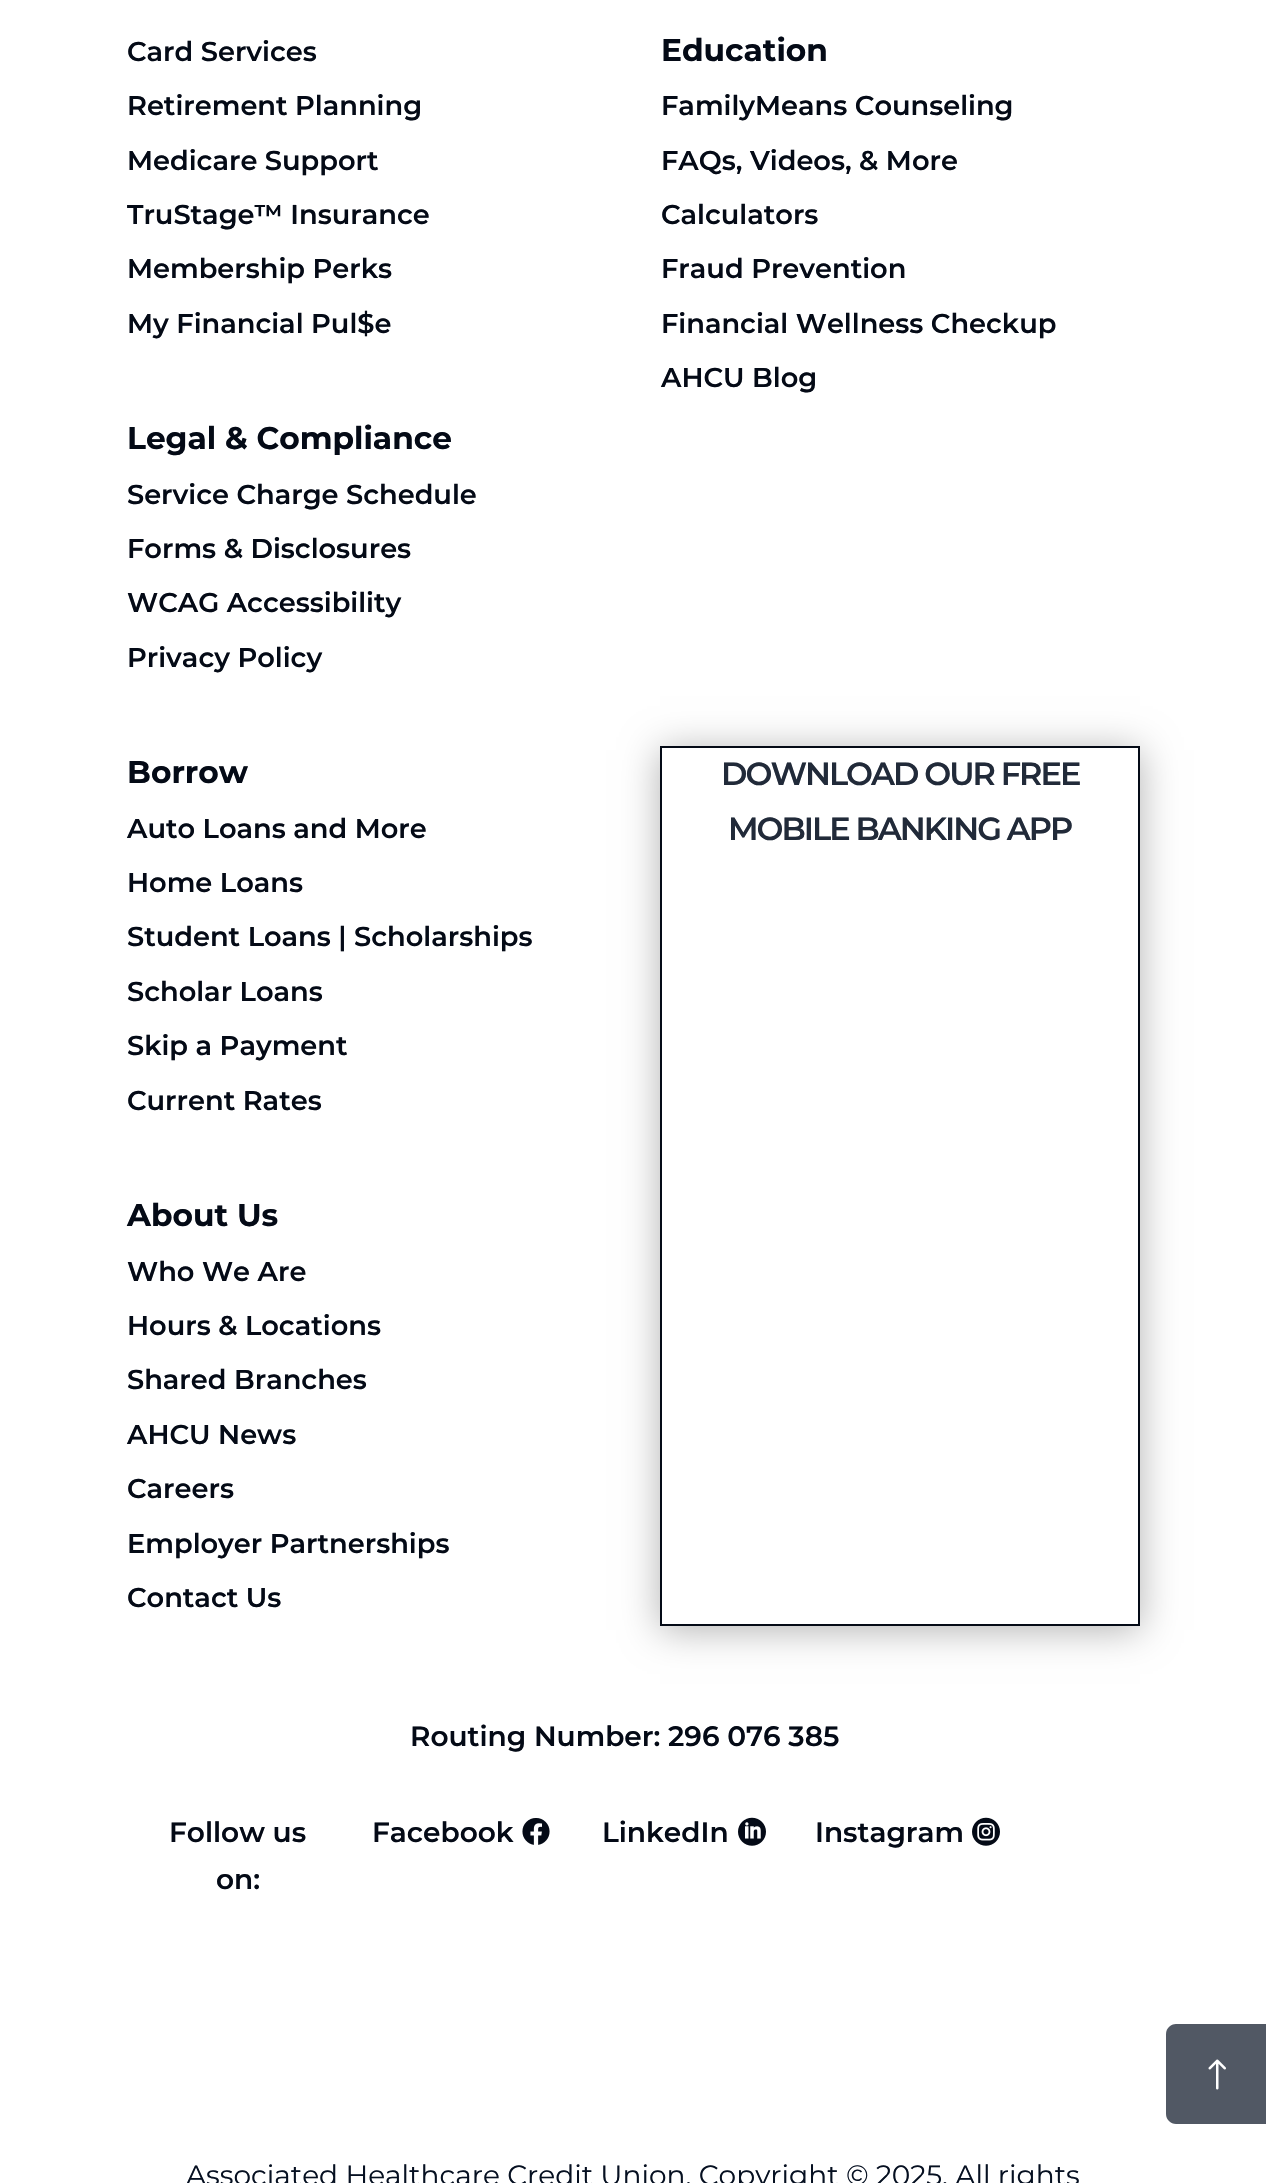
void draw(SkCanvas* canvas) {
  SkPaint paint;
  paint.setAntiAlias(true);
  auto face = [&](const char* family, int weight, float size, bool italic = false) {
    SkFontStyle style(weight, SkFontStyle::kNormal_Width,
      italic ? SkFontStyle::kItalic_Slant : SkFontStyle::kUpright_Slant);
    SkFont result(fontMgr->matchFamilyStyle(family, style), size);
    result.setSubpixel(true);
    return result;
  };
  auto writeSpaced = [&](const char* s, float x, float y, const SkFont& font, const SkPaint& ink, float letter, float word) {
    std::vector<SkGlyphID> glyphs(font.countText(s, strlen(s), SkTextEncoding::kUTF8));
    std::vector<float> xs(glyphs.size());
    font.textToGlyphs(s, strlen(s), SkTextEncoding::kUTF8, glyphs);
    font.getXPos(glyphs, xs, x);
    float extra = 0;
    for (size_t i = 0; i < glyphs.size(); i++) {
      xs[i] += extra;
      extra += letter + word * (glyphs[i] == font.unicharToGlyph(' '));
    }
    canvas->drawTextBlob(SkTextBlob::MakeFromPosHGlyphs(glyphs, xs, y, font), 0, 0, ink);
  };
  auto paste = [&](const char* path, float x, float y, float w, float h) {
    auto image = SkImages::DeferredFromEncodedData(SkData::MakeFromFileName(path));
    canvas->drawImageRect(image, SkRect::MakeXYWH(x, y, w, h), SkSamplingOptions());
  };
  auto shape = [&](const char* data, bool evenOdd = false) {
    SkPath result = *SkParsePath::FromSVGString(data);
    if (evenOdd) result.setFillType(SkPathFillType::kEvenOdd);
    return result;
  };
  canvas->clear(0xffffffff);
  canvas->save();
  canvas->clipPath(shape("M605 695H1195V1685H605ZM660 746H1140V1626H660Z", true), true);
  paint.setColor(0x4d000000);
  paint.setMaskFilter(SkMaskFilter::MakeBlur(kNormal_SkBlurStyle, 18));
  canvas->drawRect(SkRect::MakeXYWH(660, 750, 480, 880), paint);
  paint.setMaskFilter(nullptr);
  canvas->restore();
  paint.setStroke(true);
  paint.setStrokeWidth(2);
  paint.setColor(0xff040a16);
  canvas->drawRect(SkRect::MakeXYWH(661, 747, 478, 878), paint);
  paste("img/1.png", 522, 1818, 28, 27);
  paste("img/2.png", 738, 1817, 28, 29);
  paste("img/3.png", 972, 1817, 28, 29);
  paint.setStroke(false);
  paint.setColor(0xff515864);
  canvas->drawPath(shape("M1176 2024H1266V2124H1176C1170.5 2124 1166 2119.5 1166 2114V2034C1166 2028.5 1170.5 2024 1176 2024Z"), paint);
  paste("img/4.png", 1208, 2059, 18, 31);
  auto f0 = face("Montserrat", 600, 27.25f);
  paint.setColor(0xff040a16);
  {
    const struct { const char* s; float x, y; } items[] = {
      {"Card Services", 127, 61},
      {"Retirement Planning", 127, 115},
      {"Medicare Support", 127, 170},
      {"TruStage™ Insurance", 127, 224},
      {"Membership Perks", 127, 278},
      {"My Financial Pul$e", 127, 333},
    };
    for (auto [s, x, y] : items) {
      canvas->drawString(s, x, y, f0, paint);
    }
  }
  auto f1 = face("Montserrat", 700, 31.25f);
  canvas->drawString("Legal & Compliance", 127, 449, f1, paint);
  {
    const struct { const char* s; float x, y; } items[] = {
      {"Service Charge Schedule", 127, 504},
      {"Forms & Disclosures", 127, 558},
      {"WCAG Accessibility", 127, 612},
      {"Privacy Policy", 127, 667},
    };
    for (auto [s, x, y] : items) {
      canvas->drawString(s, x, y, f0, paint);
    }
  }
  canvas->drawString("Education", 661, 61, f1, paint);
  {
    const struct { const char* s; float x, y; } items[] = {
      {"FamilyMeans Counseling", 661, 115},
      {"FAQs, Videos, & More", 661, 170},
      {"Calculators", 661, 224},
      {"Fraud Prevention", 661, 278},
      {"Financial Wellness Checkup", 661, 333},
      {"AHCU Blog", 661, 387},
    };
    for (auto [s, x, y] : items) {
      canvas->drawString(s, x, y, f0, paint);
    }
  }
  canvas->drawString("Borrow", 127, 783, f1, paint);
  {
    const struct { const char* s; float x, y; } items[] = {
      {"Auto Loans and More", 127, 838},
      {"Home Loans", 127, 892},
      {"Student Loans | Scholarships", 127, 946},
      {"Scholar Loans", 127, 1001},
      {"Skip a Payment", 127, 1055},
      {"Current Rates", 127, 1110},
    };
    for (auto [s, x, y] : items) {
      canvas->drawString(s, x, y, f0, paint);
    }
  }
  canvas->drawString("About Us", 127, 1226, f1, paint);
  {
    const struct { const char* s; float x, y; } items[] = {
      {"Who We Are", 127, 1281},
      {"Hours & Locations", 127, 1335},
      {"Shared Branches", 127, 1389},
      {"AHCU News", 127, 1444},
      {"Careers", 127, 1498},
      {"Employer Partnerships", 127, 1553},
      {"Contact Us", 127, 1607},
    };
    for (auto [s, x, y] : items) {
      canvas->drawString(s, x, y, f0, paint);
    }
  }
  auto f2 = face("Montserrat", 600, 32);
  paint.setColor(0xff212a39);
  writeSpaced("DOWNLOAD OUR FREE", 721, 785, f2, paint, -2, 0);
  writeSpaced("MOBILE BANKING APP", 728, 840, f2, paint, -2, 0);
  auto f3 = face("Montserrat", 600, 28);
  paint.setColor(0xff040a16);
  {
    const struct { const char* s; float x, y; } items[] = {
      {"Routing Number: 296 076 385", 410, 1746},
      {"Follow us", 169, 1842},
      {"on:", 216, 1889},
      {"Facebook", 372, 1842},
      {"LinkedIn", 602, 1842},
      {"Instagram", 815, 1842},
    };
    for (auto [s, x, y] : items) {
      canvas->drawString(s, x, y, f3, paint);
    }
  }
  auto f4 = face("Montserrat", 400, 28);
  paint.setColor(0xff061021);
  canvas->drawString("Associated Healthcare Credit Union. Copyright © 2025. All rights", 186, 2185, f4, paint);
}
